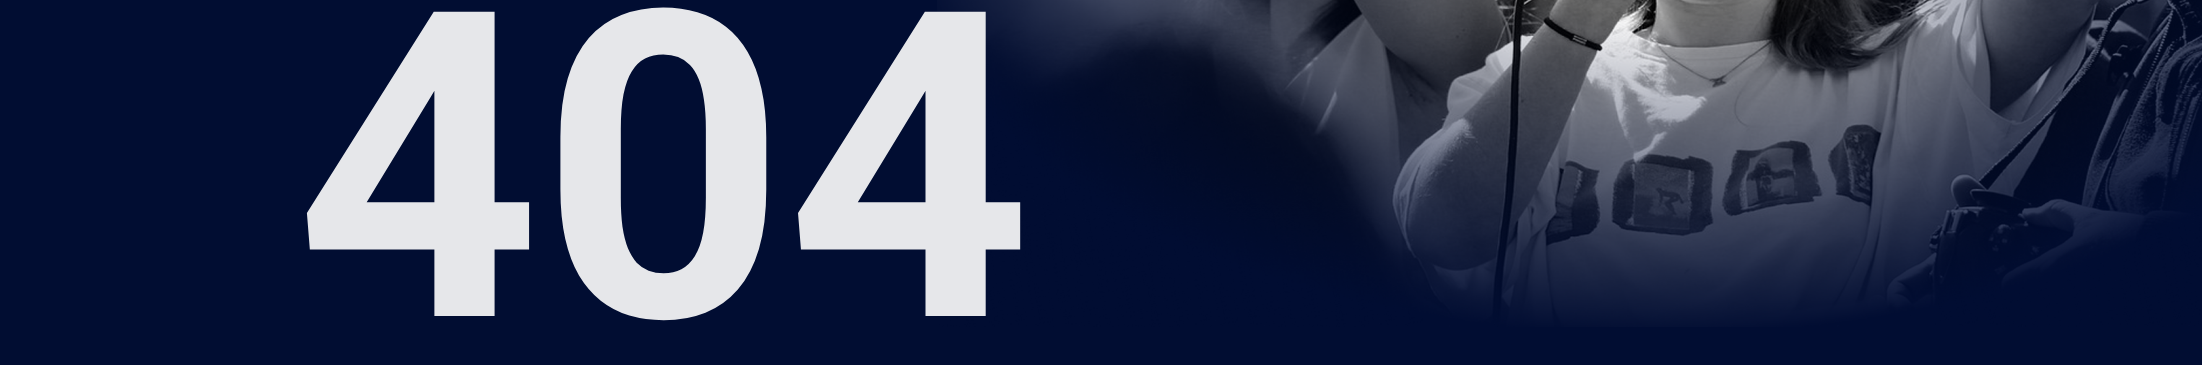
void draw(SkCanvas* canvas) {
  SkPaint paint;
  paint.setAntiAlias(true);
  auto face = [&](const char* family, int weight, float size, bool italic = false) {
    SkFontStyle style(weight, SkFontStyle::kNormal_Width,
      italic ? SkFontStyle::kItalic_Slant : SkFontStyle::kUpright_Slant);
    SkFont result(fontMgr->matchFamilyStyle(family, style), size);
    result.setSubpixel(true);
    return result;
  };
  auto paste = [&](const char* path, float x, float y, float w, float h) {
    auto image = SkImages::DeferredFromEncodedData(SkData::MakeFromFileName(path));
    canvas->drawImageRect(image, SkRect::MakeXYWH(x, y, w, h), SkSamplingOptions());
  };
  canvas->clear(0xff010d32);
  paste("img/1.png", 937, 0, 1265, 327);
  auto f0 = face("Roboto", 700, 428);
  paint.setColor(0xffe6e7ea);
  canvas->drawString("404", 295, 316, f0, paint);
}
